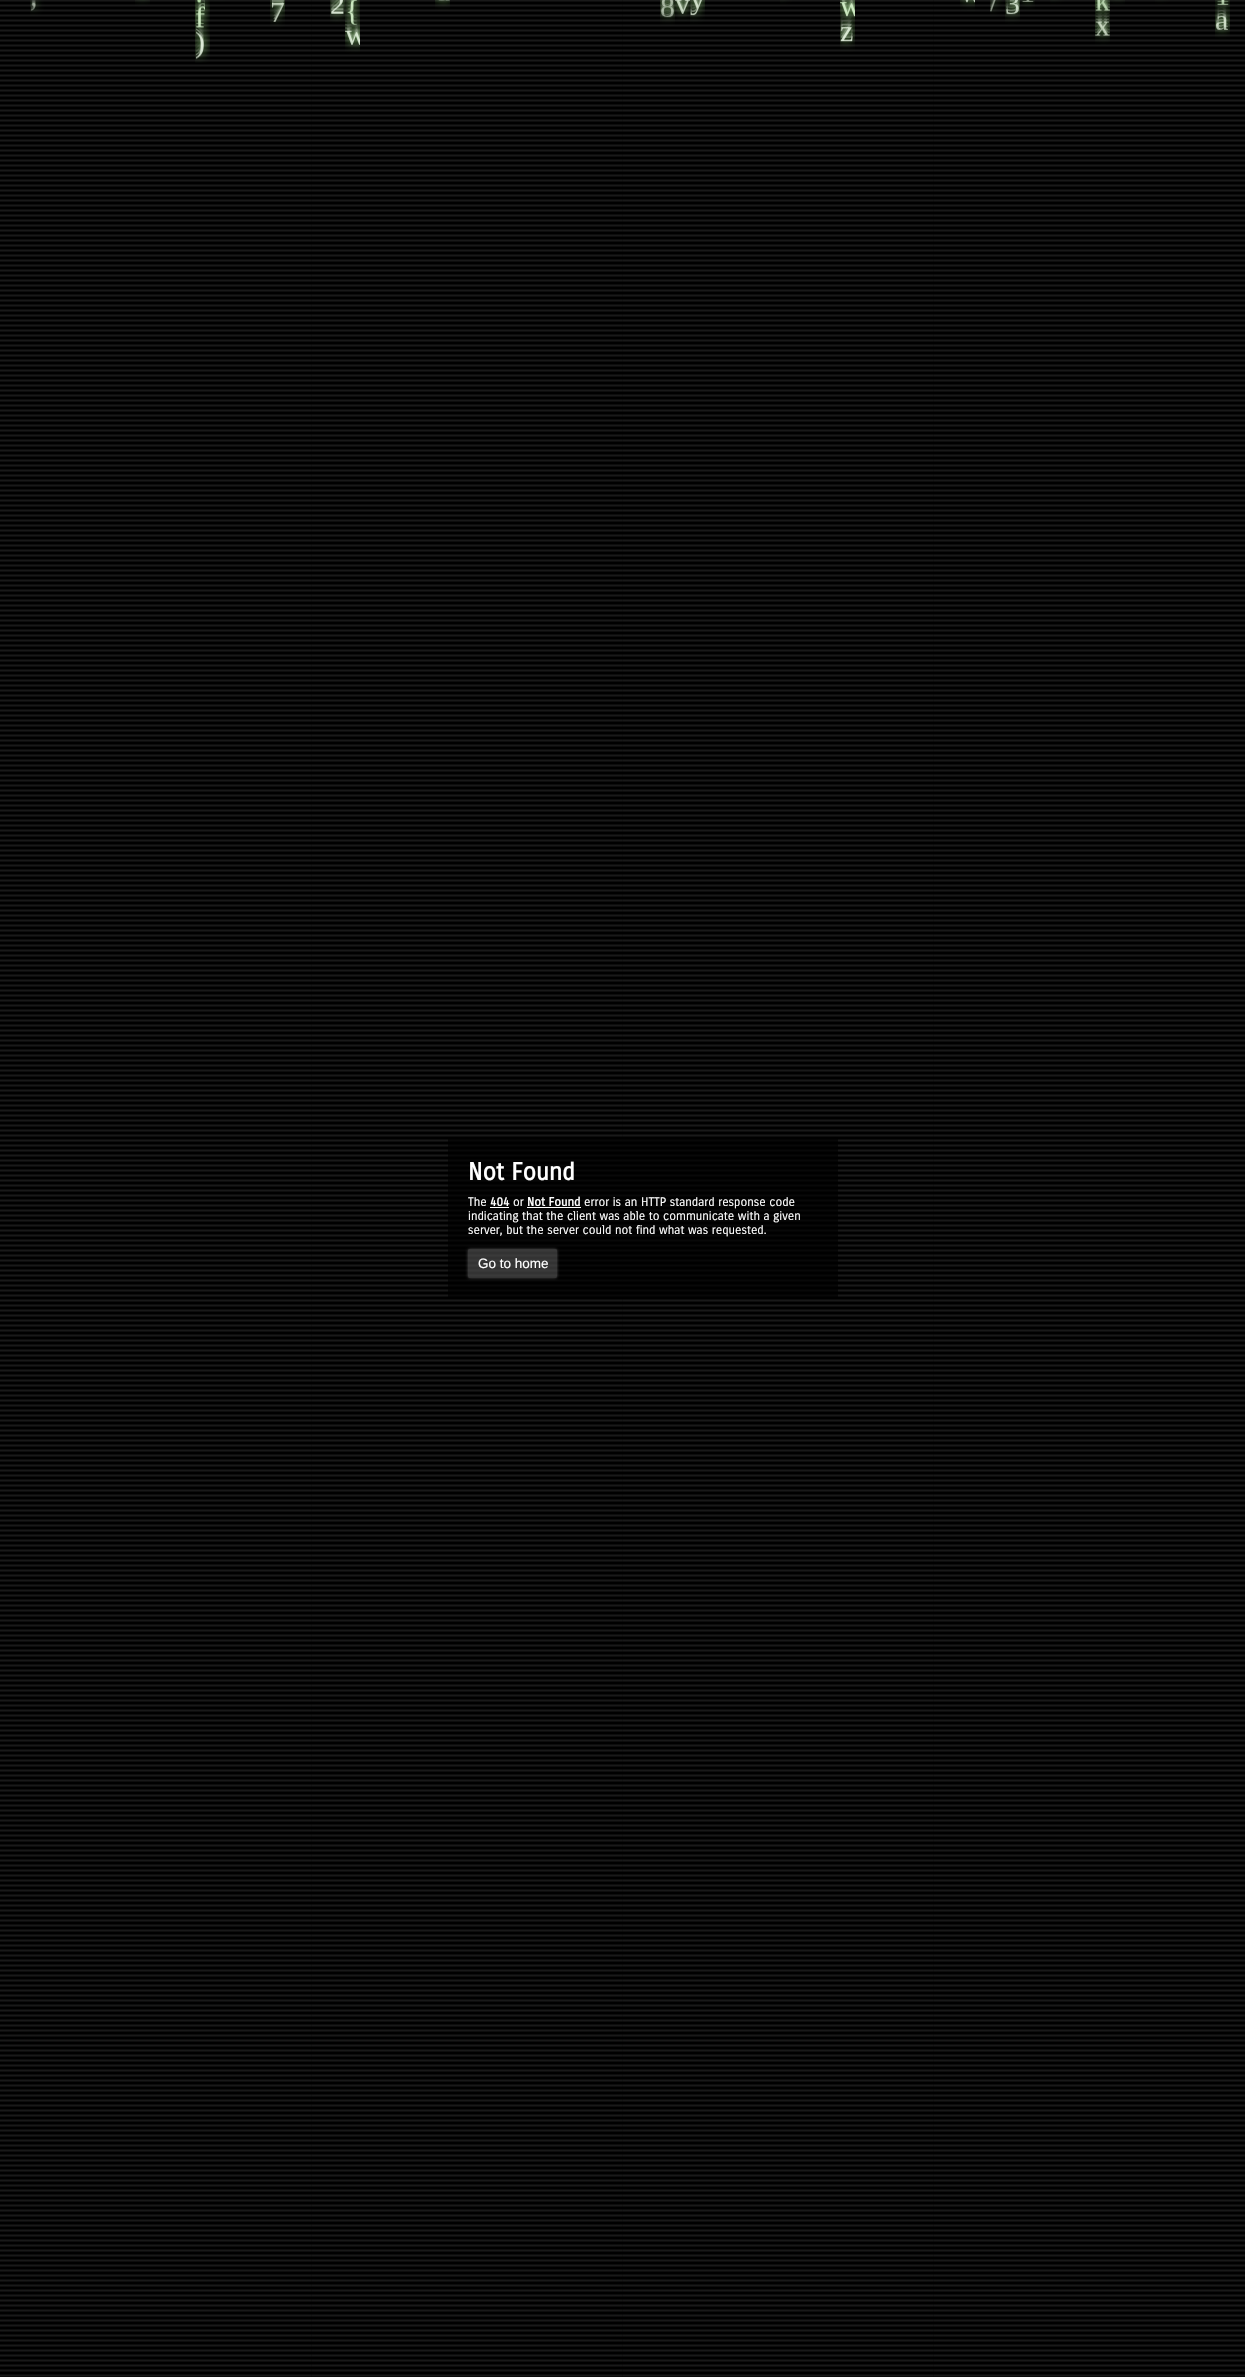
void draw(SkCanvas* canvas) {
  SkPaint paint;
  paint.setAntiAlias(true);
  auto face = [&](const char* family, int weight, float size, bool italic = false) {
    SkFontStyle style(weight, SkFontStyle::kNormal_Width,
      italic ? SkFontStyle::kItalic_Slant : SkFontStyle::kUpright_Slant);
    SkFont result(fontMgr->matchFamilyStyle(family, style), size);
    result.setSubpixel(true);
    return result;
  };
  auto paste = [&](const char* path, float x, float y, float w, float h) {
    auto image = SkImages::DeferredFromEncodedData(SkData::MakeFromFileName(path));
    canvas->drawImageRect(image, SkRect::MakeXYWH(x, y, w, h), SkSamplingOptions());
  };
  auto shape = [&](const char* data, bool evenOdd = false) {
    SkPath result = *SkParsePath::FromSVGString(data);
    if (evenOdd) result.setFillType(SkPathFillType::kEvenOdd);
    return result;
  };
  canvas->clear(0xff000000);
  paste("img/2.png", 30, 0, 1200, 63);
  paste("img/1.png", 0, 0, 1245, 2377);
  {
    const struct { float x, y, w, h; SkColor color; } items[] = {
      {448, 1139, 390, 158, 0xb3000000},
      {490, 1207, 19, 1, 0xffffffff},
      {527, 1207, 54, 1, 0xffffffff},
    };
    for (auto [x, y, w, h, color] : items) {
      paint.setColor(color);
      canvas->drawRect(SkRect::MakeXYWH(x, y, w, h), paint);
    }
  }
  canvas->save();
  canvas->clipPath(shape("M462 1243H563V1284H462ZM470 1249H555C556 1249 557 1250 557 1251V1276C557 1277 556 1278 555 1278H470C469 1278 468 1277 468 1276V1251C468 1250 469 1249 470 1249Z", true), true);
  paint.setColor(0x4dffffff);
  paint.setMaskFilter(SkMaskFilter::MakeBlur(kNormal_SkBlurStyle, 1.5f));
  canvas->drawRoundRect(SkRect::MakeXYWH(468, 1249, 89, 29), 2, 2, paint);
  paint.setMaskFilter(nullptr);
  canvas->restore();
  paint.setColor(0x33ffffff);
  canvas->drawRoundRect(SkRect::MakeXYWH(468, 1249, 89, 29), 2, 2, paint);
  auto f0 = face("Carrois Gothic", 700, 24);
  paint.setColor(0xffffffff);
  canvas->drawString("Not Found", 468, 1180, f0, paint);
  auto f1 = face("Carrois Gothic", 400, 12);
  canvas->drawString("The", 468, 1206, f1, paint);
  auto f2 = face("Carrois Gothic", 700, 12);
  canvas->drawString("404", 490, 1206, f2, paint);
  canvas->drawString("or", 513, 1206, f1, paint);
  canvas->drawString("Not Found", 527, 1206, f2, paint);
  {
    const struct { const char* s; float x, y; } items[] = {
      {"error is an HTTP standard response code", 584, 1206},
      {"indicating that the client was able to communicate with a given", 468, 1220},
      {"server, but the server could not find what was requested.", 468, 1234},
    };
    for (auto [s, x, y] : items) {
      canvas->drawString(s, x, y, f1, paint);
    }
  }
  auto f3 = face("Liberation Sans", 400, 13.5f);
  canvas->drawString("Go to home", 478, 1268, f3, paint);
}
